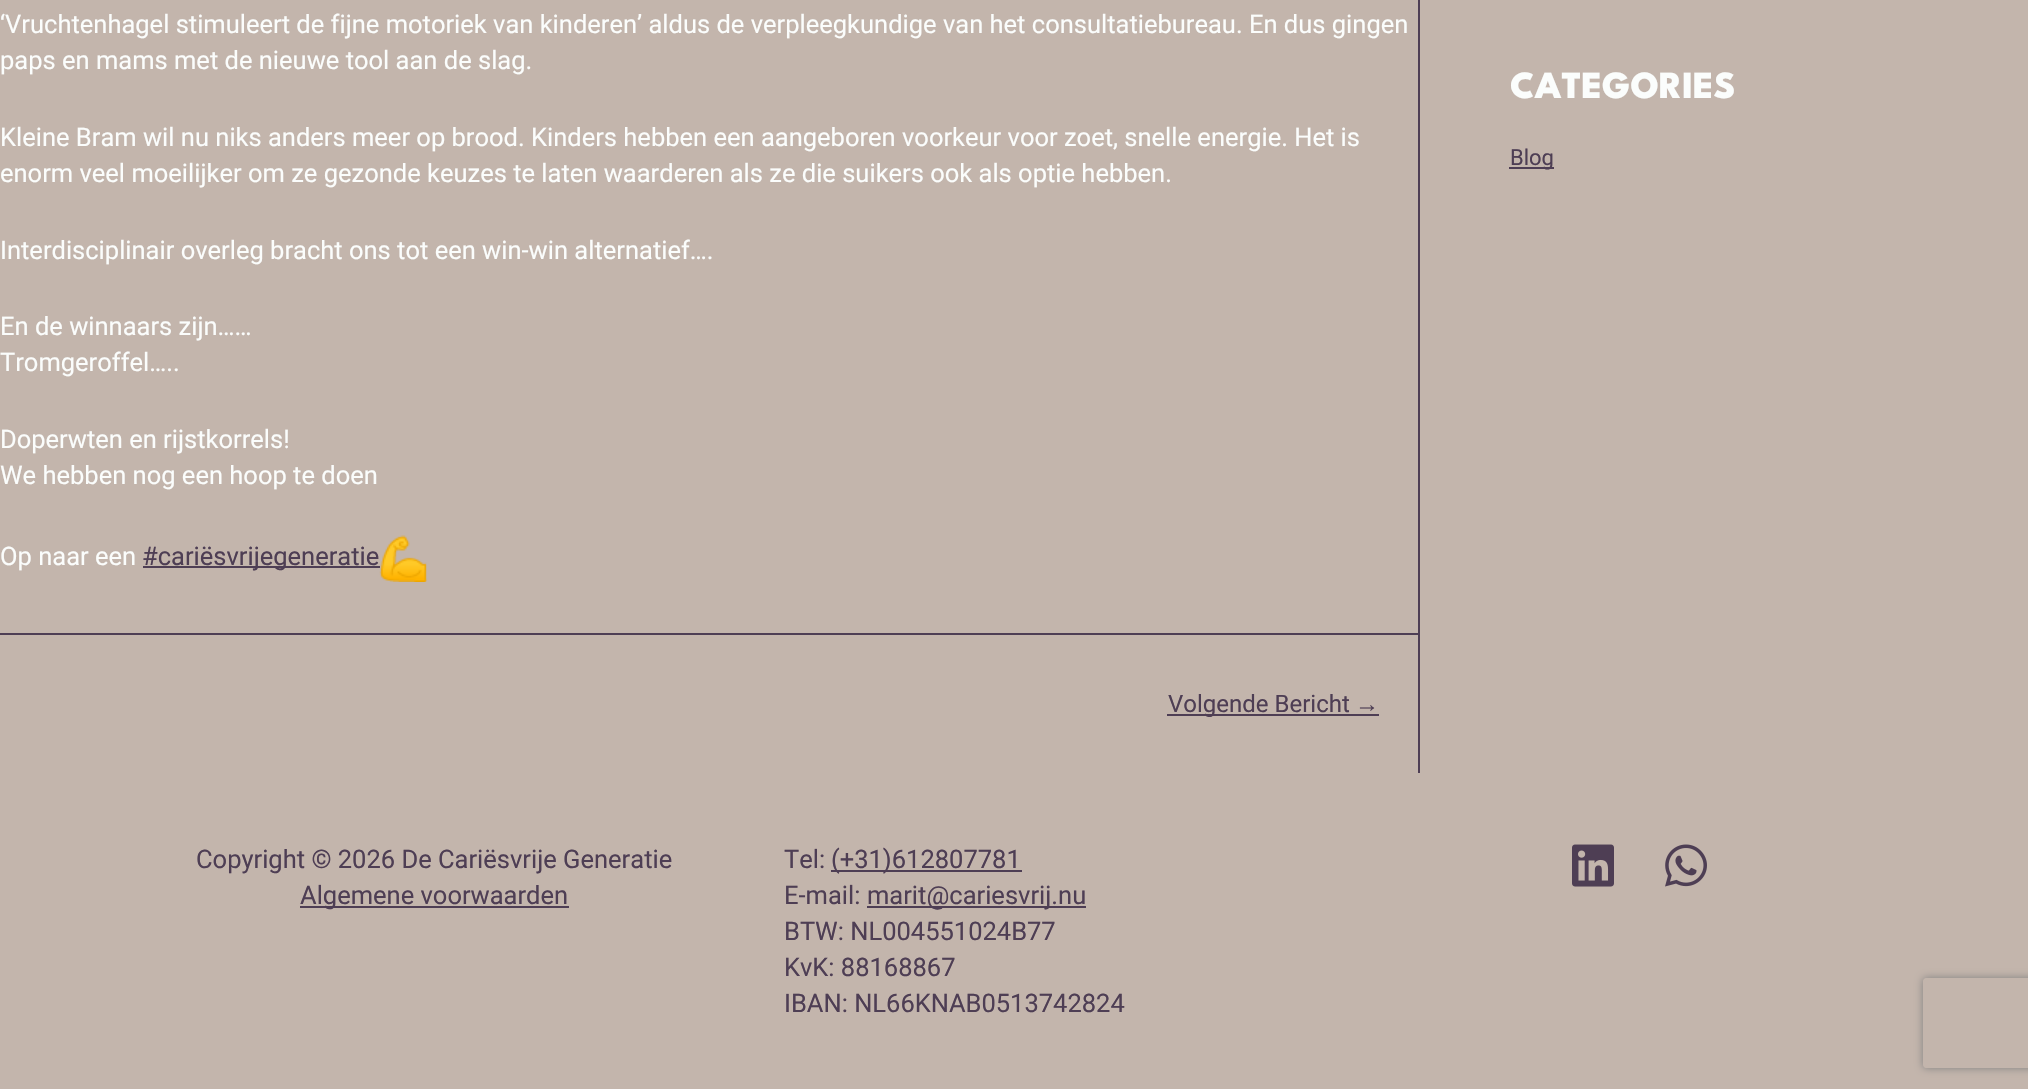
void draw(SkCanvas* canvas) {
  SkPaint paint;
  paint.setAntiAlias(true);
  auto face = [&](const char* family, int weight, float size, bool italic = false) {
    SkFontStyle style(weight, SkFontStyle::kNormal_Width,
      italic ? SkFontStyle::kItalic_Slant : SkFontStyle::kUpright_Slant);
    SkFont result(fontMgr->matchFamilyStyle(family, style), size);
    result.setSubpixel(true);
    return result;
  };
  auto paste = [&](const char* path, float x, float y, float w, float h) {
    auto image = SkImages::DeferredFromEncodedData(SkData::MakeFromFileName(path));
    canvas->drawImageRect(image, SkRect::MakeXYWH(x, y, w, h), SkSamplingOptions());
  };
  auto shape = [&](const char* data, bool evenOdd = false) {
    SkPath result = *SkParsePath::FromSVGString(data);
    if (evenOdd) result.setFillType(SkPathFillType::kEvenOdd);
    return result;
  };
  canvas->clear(0xffc3b5ac);
  paint.setColor(0xff4e3e54);
  canvas->drawRect(SkRect::MakeXYWH(1418, 0, 2, 773), paint);
  canvas->drawRect(SkRect::MakeXYWH(143, 566, 237, 2), paint);
  paste("img/1.png", 379, 535, 49, 47);
  {
    const struct { float x, y, w, h; SkColor color; } items[] = {
      {0, 633, 1418, 2, 0xff4e3e54},
      {1167, 714, 212, 2, 0xff4e3e54},
      {1509, 167, 45, 2, 0xff4e3e54},
      {300, 906, 269, 2, 0xff4e3e54},
      {831, 870, 191, 2, 0xff4e3e54},
      {867, 906, 219, 2, 0xff4e3e54},
    };
    for (auto [x, y, w, h, color] : items) {
      paint.setColor(color);
      canvas->drawRect(SkRect::MakeXYWH(x, y, w, h), paint);
    }
  }
  paste("img/2.png", 1572, 844, 42, 43);
  paste("img/3.png", 1665, 844, 42, 43);
  canvas->save();
  canvas->clipPath(shape("M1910 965H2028V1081H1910ZM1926 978H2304C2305.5 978 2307 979.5 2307 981V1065C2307 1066.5 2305.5 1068 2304 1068H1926C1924.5 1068 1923 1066.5 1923 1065V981C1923 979.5 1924.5 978 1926 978Z", true), true);
  paint.setColor(0xff808080);
  paint.setMaskFilter(SkMaskFilter::MakeBlur(kNormal_SkBlurStyle, 4));
  canvas->drawRoundRect(SkRect::MakeXYWH(1923, 978, 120, 90), 3, 3, paint);
  paint.setMaskFilter(nullptr);
  canvas->restore();
  auto f0 = face("Roboto", 400, 25.5f);
  paint.setColor(0xfffbfdfc);
  {
    const struct { const char* s; float x, y; } items[] = {
      {"‘Vruchtenhagel stimuleert de fijne motoriek van kinderen’ aldus de verpleegkundige van het consultatiebureau. En dus gingen", 0, 33},
      {"paps en mams met de nieuwe tool aan de slag.", 0, 69},
      {"Kleine Bram wil nu niks anders meer op brood. Kinders hebben een aangeboren voorkeur voor zoet, snelle energie. Het is", 0, 146},
      {"enorm veel moeilijker om ze gezonde keuzes te laten waarderen als ze die suikers ook als optie hebben.", 0, 182},
      {"Interdisciplinair overleg bracht ons tot een win-win alternatief….", 0, 259},
      {"En de winnaars zijn……", 0, 335},
      {"Tromgeroffel…..", 0, 371},
      {"Doperwten en rijstkorrels!", 0, 448},
      {"We hebben nog een hoop te doen", 0, 484},
      {"Op naar een", 0, 565},
    };
    for (auto [s, x, y] : items) {
      canvas->drawString(s, x, y, f0, paint);
    }
  }
  paint.setColor(0xff4e3e54);
  canvas->drawString("#cariësvrijegeneratie", 142, 565, f0, paint);
  auto f1 = face("Roboto", 400, 24);
  canvas->drawString("Volgende Bericht", 1168, 712, f1, paint);
  auto f2 = face("Liberation Sans", 400, 24);
  canvas->drawString("→", 1355, 712, f2, paint);
  auto f3 = face("League Spartan", 800, 38.25f);
  paint.setColor(0xfffbfdfc);
  canvas->drawString("CATEGORIES", 1510, 98, f3, paint);
  auto f4 = face("Roboto", 400, 22);
  paint.setColor(0xff4e3e54);
  canvas->drawString("Blog", 1510, 165, f4, paint);
  {
    const struct { const char* s; float x, y; } items[] = {
      {"Copyright © 2026 De Cariësvrije Generatie", 196, 868},
      {"Algemene voorwaarden", 300, 904},
      {"Tel:", 784, 868},
      {"(+31)612807781", 831, 868},
      {"E-mail:", 784, 904},
      {"marit@cariesvrij.nu", 867, 904},
      {"BTW: NL004551024B77", 784, 940},
      {"KvK: 88168867", 784, 976},
      {"IBAN: NL66KNAB0513742824", 784, 1012},
    };
    for (auto [s, x, y] : items) {
      canvas->drawString(s, x, y, f0, paint);
    }
  }
}
